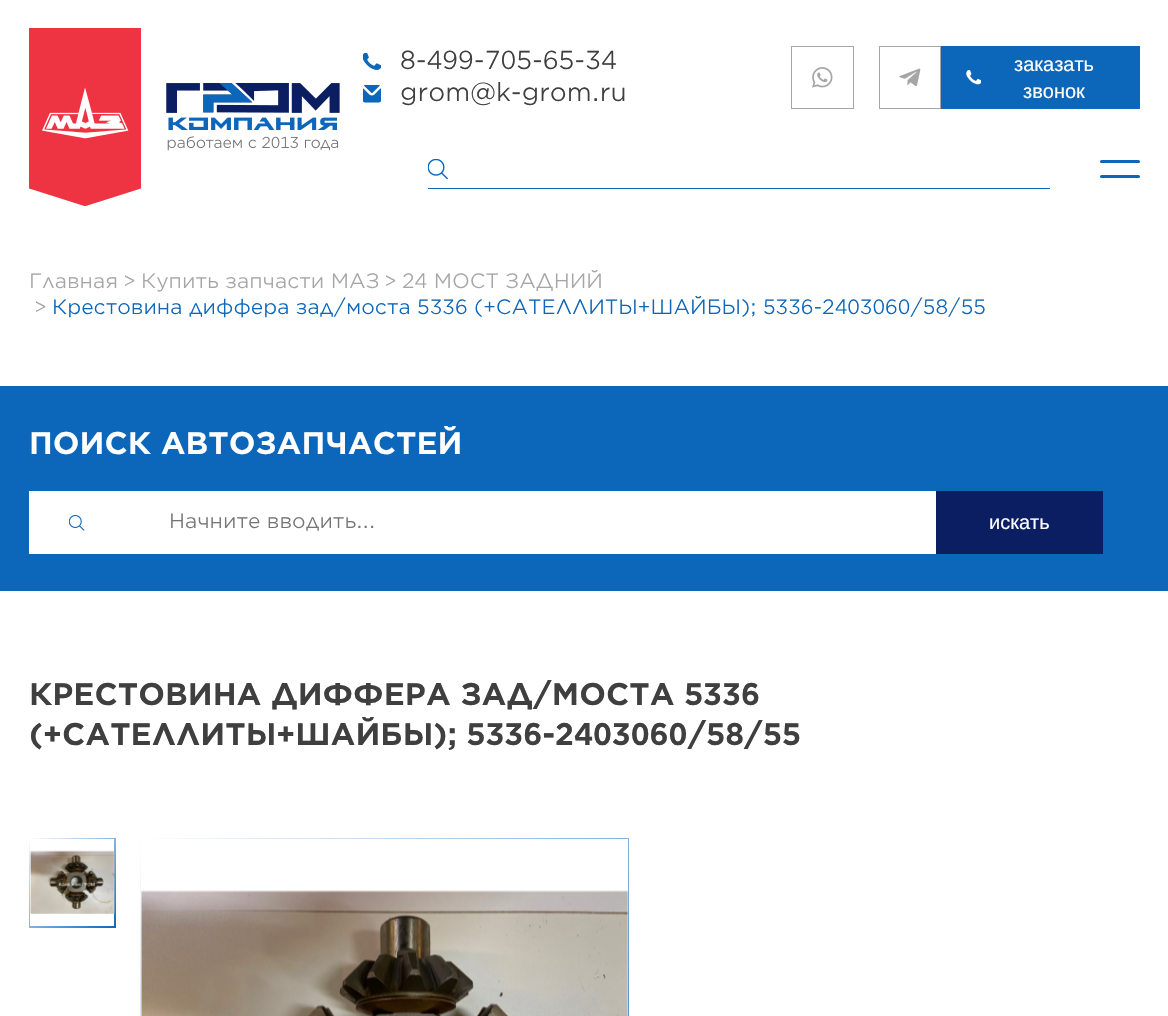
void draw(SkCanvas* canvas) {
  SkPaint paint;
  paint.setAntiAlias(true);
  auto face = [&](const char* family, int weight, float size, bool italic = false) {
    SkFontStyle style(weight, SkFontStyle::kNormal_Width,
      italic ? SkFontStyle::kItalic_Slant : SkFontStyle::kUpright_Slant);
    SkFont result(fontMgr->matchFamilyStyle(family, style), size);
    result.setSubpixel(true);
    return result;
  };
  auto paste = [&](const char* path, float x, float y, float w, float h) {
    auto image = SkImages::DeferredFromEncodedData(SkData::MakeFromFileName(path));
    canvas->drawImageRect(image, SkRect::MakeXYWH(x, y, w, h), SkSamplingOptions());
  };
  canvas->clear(0xffffffff);
  paste("img/1.png", 29, 28, 112, 178);
  paste("img/2.png", 166, 83, 174, 68);
  paste("img/3.png", 363, 53, 18, 17);
  paste("img/4.png", 363, 85, 18, 18);
  paint.setStroke(true);
  paint.setStrokeWidth(1);
  paint.setColor(0xffa6a6a6);
  canvas->drawRect(SkRect::MakeXYWH(791.5f, 46.5f, 62, 62), paint);
  paste("img/5.png", 812, 67, 21, 21);
  canvas->drawRect(SkRect::MakeXYWH(879.5f, 46.5f, 61, 62), paint);
  paste("img/6.png", 899, 68, 22, 18);
  paint.setStroke(false);
  paint.setColor(0xff0c67bb);
  canvas->drawRect(SkRect::MakeXYWH(941, 46, 199, 63), paint);
  paste("img/7.png", 966, 70, 15, 15);
  paste("img/8.png", 428, 159, 20, 21);
  canvas->drawRect(SkRect::MakeXYWH(428, 188, 622, 1), paint);
  canvas->drawRoundRect(SkRect::MakeXYWH(1100, 160, 40, 3), 1.5f, 1.5f, paint);
  canvas->drawRoundRect(SkRect::MakeXYWH(1100, 175, 40, 3), 1.5f, 1.5f, paint);
  canvas->drawRect(SkRect::MakeXYWH(0, 386, 1168, 205), paint);
  paint.setColor(0xffffffff);
  canvas->drawRect(SkRect::MakeXYWH(29, 491, 907, 63), paint);
  paste("img/9.png", 69, 515, 16, 16);
  paint.setColor(0xff0b1e62);
  canvas->drawRect(SkRect::MakeXYWH(936, 491, 167, 63), paint);
  {
    const SkColor colors[] = {0xff0c67bb, 0xffffffff};
    const float stops[] = {0, 1};
    const SkPoint ends[] = {{117, 927}, {28, 838}};
    paint.setShader(SkGradientShader::MakeLinear(ends, colors, stops, 2, SkTileMode::kClamp));
    paint.setAlpha(255);
  }
  canvas->drawRect(SkRect::MakeXYWH(29, 838, 87, 90), paint);
  paint.setShader(nullptr);
  paint.setColor(0xffffffff);
  canvas->drawRect(SkRect::MakeXYWH(30, 839, 84, 87), paint);
  paste("img/10.png", 29, 850, 86, 64);
  {
    const SkColor colors[] = {0xff0c67bb, 0xffffffff};
    const float stops[] = {0, 1};
    const SkPoint ends[] = {{625, 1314}, {144, 833}};
    paint.setShader(SkGradientShader::MakeLinear(ends, colors, stops, 2, SkTileMode::kClamp));
    paint.setAlpha(255);
  }
  canvas->drawRect(SkRect::MakeXYWH(140, 838, 489, 178), paint);
  paint.setShader(nullptr);
  paint.setColor(0xffffffff);
  canvas->drawRect(SkRect::MakeXYWH(141, 839, 487, 177), paint);
  paste("img/11.png", 141, 890, 487, 126);
  auto f0 = face("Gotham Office", 400, 25);
  paint.setColor(0xff3f3f3f);
  canvas->drawString("8-499-705-65-34", 400, 69, f0, paint);
  canvas->drawString("grom@k-grom.ru", 400, 101, f0, paint);
  auto f1 = face("Liberation Sans", 400, 20);
  paint.setColor(0xffffffff);
  canvas->drawString("заказать", 1014, 71, f1, paint);
  canvas->drawString("звонок", 1023, 98, f1, paint);
  auto f2 = face("Gotham Office", 400, 20);
  paint.setColor(0xffa6a6a6);
  {
    const struct { const char* s; float x, y; } items[] = {
      {"Главная", 29, 288},
      {">", 123, 288},
      {"Купить запчасти МАЗ", 141, 288},
      {">", 384, 288},
      {"24 МОСТ ЗАДНИЙ", 402, 288},
      {">", 34, 314},
    };
    for (auto [s, x, y] : items) {
      canvas->drawString(s, x, y, f2, paint);
    }
  }
  paint.setColor(0xff0c67bb);
  canvas->drawString("Крестовина диффера зад/моста 5336 (+САТЕЛЛИТЫ+ШАЙБЫ); 5336-2403060/58/55", 52, 314, f2, paint);
  auto f3 = face("Gotham Office", 700, 30);
  paint.setColor(0xffffffff);
  canvas->drawString("ПОИСК АВТОЗАПЧАСТЕЙ", 29, 454, f3, paint);
  paint.setColor(0xff757575);
  canvas->drawString("Начните вводить...", 169, 528, f2, paint);
  paint.setColor(0xffffffff);
  canvas->drawString("искать", 989, 529, f1, paint);
  paint.setColor(0xff3f3f3f);
  canvas->drawString("КРЕСТОВИНА ДИФФЕРА ЗАД/МОСТА 5336", 29, 705, f3, paint);
  canvas->drawString("(+САТЕЛЛИТЫ+ШАЙБЫ); 5336-2403060/58/55", 29, 745, f3, paint);
}
